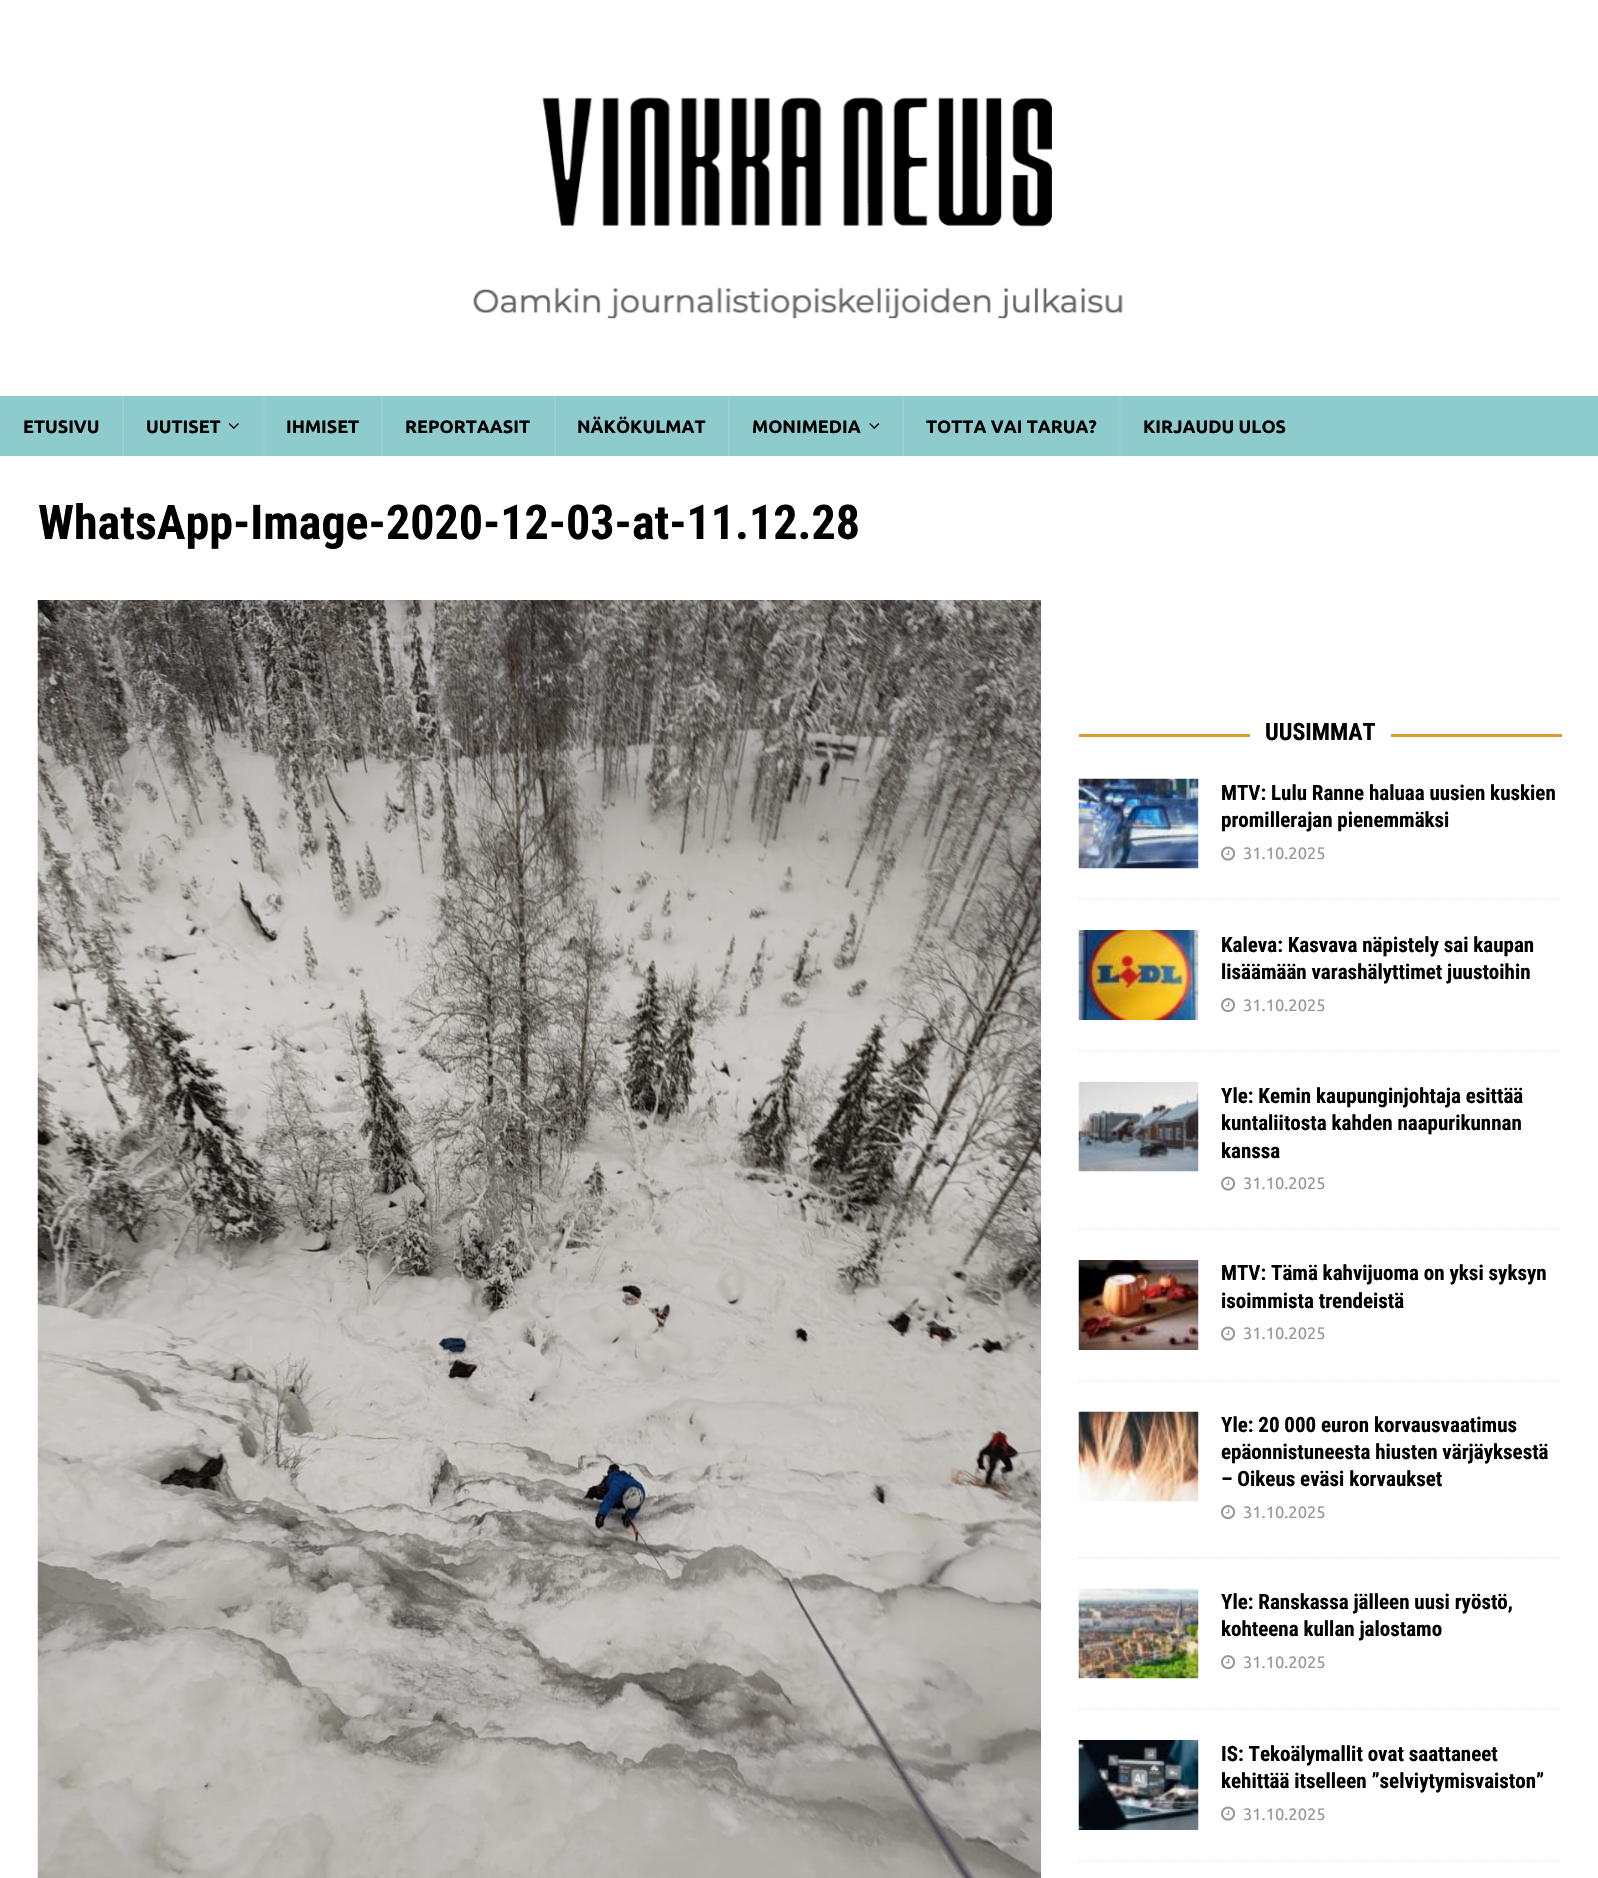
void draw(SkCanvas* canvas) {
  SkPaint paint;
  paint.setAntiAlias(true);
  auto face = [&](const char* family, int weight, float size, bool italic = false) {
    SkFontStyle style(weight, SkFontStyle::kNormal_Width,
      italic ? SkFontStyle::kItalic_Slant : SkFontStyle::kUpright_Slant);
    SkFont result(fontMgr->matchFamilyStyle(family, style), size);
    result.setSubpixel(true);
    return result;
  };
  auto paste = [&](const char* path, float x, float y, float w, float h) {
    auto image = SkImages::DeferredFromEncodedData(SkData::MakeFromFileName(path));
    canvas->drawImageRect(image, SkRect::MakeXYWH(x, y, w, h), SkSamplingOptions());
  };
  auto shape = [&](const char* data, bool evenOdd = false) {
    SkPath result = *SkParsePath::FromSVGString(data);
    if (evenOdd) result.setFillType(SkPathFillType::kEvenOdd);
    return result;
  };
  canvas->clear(0xffffffff);
  paste("img/1.png", 472, 97, 651, 222);
  paint.setColor(0xff8ecbcd);
  canvas->drawRect(SkRect::MakeXYWH(0, 396, 1598, 60), paint);
  paint.setColor(0xff99d0d2);
  canvas->drawRect(SkRect::MakeXYWH(122, 396, 2, 60), paint);
  paste("img/2.png", 228, 423, 11, 6);
  {
    const struct { float x, y, w, h; SkColor color; } items[] = {
      {263, 396, 2, 60, 0xff99d0d2},
      {381, 396, 2, 60, 0xff99d0d2},
      {554, 396, 2, 60, 0xff99d0d2},
      {728, 396, 2, 60, 0xff99d0d2},
    };
    for (auto [x, y, w, h, color] : items) {
      paint.setColor(color);
      canvas->drawRect(SkRect::MakeXYWH(x, y, w, h), paint);
    }
  }
  paste("img/3.png", 869, 423, 11, 6);
  canvas->drawRect(SkRect::MakeXYWH(902, 396, 2, 60), paint);
  canvas->drawRect(SkRect::MakeXYWH(1119, 396, 2, 60), paint);
  paste("img/4.png", 37, 600, 1004, 1278);
  paint.setColor(0xffdd9933);
  canvas->drawRect(SkRect::MakeXYWH(1079, 734, 483, 3), paint);
  paint.setColor(0xffffffff);
  canvas->drawRect(SkRect::MakeXYWH(1250, 734, 141, 3), paint);
  paint.setStroke(true);
  paint.setStrokeWidth(1.5f);
  paint.setColor(0xffebebeb);
  paint.setPathEffect(SkDashPathEffect::Make({{1.5f, 1.5f}}, 0));
  canvas->drawPath(shape("M1078.5 899H1561.5"), paint);
  paint.setPathEffect(nullptr);
  paste("img/5.png", 1078, 778, 121, 91);
  paste("img/6.png", 1221, 846, 15, 15);
  paint.setPathEffect(SkDashPathEffect::Make({{1.5f, 1.5f}}, 0));
  canvas->drawPath(shape("M1078.5 1051H1561.5"), paint);
  paint.setPathEffect(nullptr);
  paste("img/7.png", 1078, 930, 121, 90);
  paste("img/8.png", 1221, 998, 15, 15);
  paint.setPathEffect(SkDashPathEffect::Make({{1.5f, 1.5f}}, 0));
  canvas->drawPath(shape("M1078.5 1229H1561.5"), paint);
  paint.setPathEffect(nullptr);
  paste("img/9.png", 1078, 1081, 121, 91);
  paste("img/6.png", 1221, 1176, 15, 15);
  paint.setPathEffect(SkDashPathEffect::Make({{1.5f, 1.5f}}, 0));
  canvas->drawPath(shape("M1078.5 1381H1561.5"), paint);
  paint.setPathEffect(nullptr);
  paste("img/10.png", 1078, 1260, 121, 90);
  paste("img/6.png", 1221, 1326, 15, 15);
  paint.setPathEffect(SkDashPathEffect::Make({{1.5f, 1.5f}}, 0));
  canvas->drawPath(shape("M1078.5 1558H1561.5"), paint);
  paint.setPathEffect(nullptr);
  paste("img/11.png", 1078, 1411, 121, 91);
  paste("img/8.png", 1221, 1505, 15, 15);
  paint.setPathEffect(SkDashPathEffect::Make({{1.5f, 1.5f}}, 0));
  canvas->drawPath(shape("M1078.5 1709H1561.5"), paint);
  paint.setPathEffect(nullptr);
  paste("img/12.png", 1078, 1588, 121, 91);
  paste("img/8.png", 1221, 1655, 15, 15);
  paint.setPathEffect(SkDashPathEffect::Make({{1.5f, 1.5f}}, 0));
  canvas->drawPath(shape("M1078.5 1861H1561.5"), paint);
  paint.setPathEffect(nullptr);
  paste("img/13.png", 1078, 1740, 121, 90);
  paste("img/6.png", 1221, 1806, 15, 15);
  auto f0 = face("Ubuntu", 700, 18);
  paint.setStroke(false);
  paint.setColor(0xff000000);
  {
    const struct { const char* s; float x, y; } items[] = {
      {"ETUSIVU", 23, 433},
      {"UUTISET", 146, 433},
      {"IHMISET", 286, 433},
      {"REPORTAASIT", 405, 433},
      {"NÄKÖKULMAT", 577, 433},
      {"MONIMEDIA", 752, 433},
      {"TOTTA VAI TARUA?", 926, 433},
      {"KIRJAUDU ULOS", 1143, 433},
    };
    for (auto [s, x, y] : items) {
      canvas->drawString(s, x, y, f0, paint);
    }
  }
  auto f1 = face("Roboto Condensed", 700, 48);
  canvas->drawString("WhatsApp-Image-2020-12-03-at-11.12.28", 38, 539, f1, paint);
  auto f2 = face("Roboto Condensed", 700, 24);
  canvas->drawString("UUSIMMAT", 1265, 740, f2, paint);
  auto f3 = face("Roboto Condensed", 700, 21);
  canvas->drawString("MTV: Lulu Ranne haluaa uusien kuskien", 1221, 800, f3, paint);
  canvas->drawString("promillerajan pienemmäksi", 1221, 827, f3, paint);
  auto f4 = face("Ubuntu", 400, 16.5f);
  paint.setColor(0xff979797);
  canvas->drawString("31.10.2025", 1243, 859, f4, paint);
  paint.setColor(0xff000000);
  canvas->drawString("Kaleva: Kasvava näpistely sai kaupan", 1221, 952, f3, paint);
  canvas->drawString("lisäämään varashälyttimet juustoihin", 1221, 979, f3, paint);
  paint.setColor(0xff979797);
  canvas->drawString("31.10.2025", 1243, 1011, f4, paint);
  paint.setColor(0xff000000);
  {
    const struct { const char* s; float x, y; } items[] = {
      {"Yle: Kemin kaupunginjohtaja esittää", 1221, 1103},
      {"kuntaliitosta kahden naapurikunnan", 1221, 1130},
      {"kanssa", 1221, 1158},
    };
    for (auto [s, x, y] : items) {
      canvas->drawString(s, x, y, f3, paint);
    }
  }
  paint.setColor(0xff979797);
  canvas->drawString("31.10.2025", 1243, 1189, f4, paint);
  paint.setColor(0xff000000);
  canvas->drawString("MTV: Tämä kahvijuoma on yksi syksyn", 1221, 1280, f3, paint);
  canvas->drawString("isoimmista trendeistä", 1221, 1308, f3, paint);
  paint.setColor(0xff979797);
  canvas->drawString("31.10.2025", 1243, 1339, f4, paint);
  paint.setColor(0xff000000);
  {
    const struct { const char* s; float x, y; } items[] = {
      {"Yle: 20 000 euron korvausvaatimus", 1221, 1432},
      {"epäonnistuneesta hiusten värjäyksestä", 1221, 1459},
      {"– Oikeus eväsi korvaukset", 1221, 1486},
    };
    for (auto [s, x, y] : items) {
      canvas->drawString(s, x, y, f3, paint);
    }
  }
  paint.setColor(0xff979797);
  canvas->drawString("31.10.2025", 1243, 1518, f4, paint);
  paint.setColor(0xff000000);
  canvas->drawString("Yle: Ranskassa jälleen uusi ryöstö,", 1221, 1609, f3, paint);
  canvas->drawString("kohteena kullan jalostamo", 1221, 1636, f3, paint);
  paint.setColor(0xff979797);
  canvas->drawString("31.10.2025", 1243, 1668, f4, paint);
  paint.setColor(0xff000000);
  canvas->drawString("IS: Tekoälymallit ovat saattaneet", 1221, 1761, f3, paint);
  canvas->drawString("kehittää itselleen ”selviytymisvaiston”", 1221, 1788, f3, paint);
  paint.setColor(0xff979797);
  canvas->drawString("31.10.2025", 1243, 1820, f4, paint);
}
